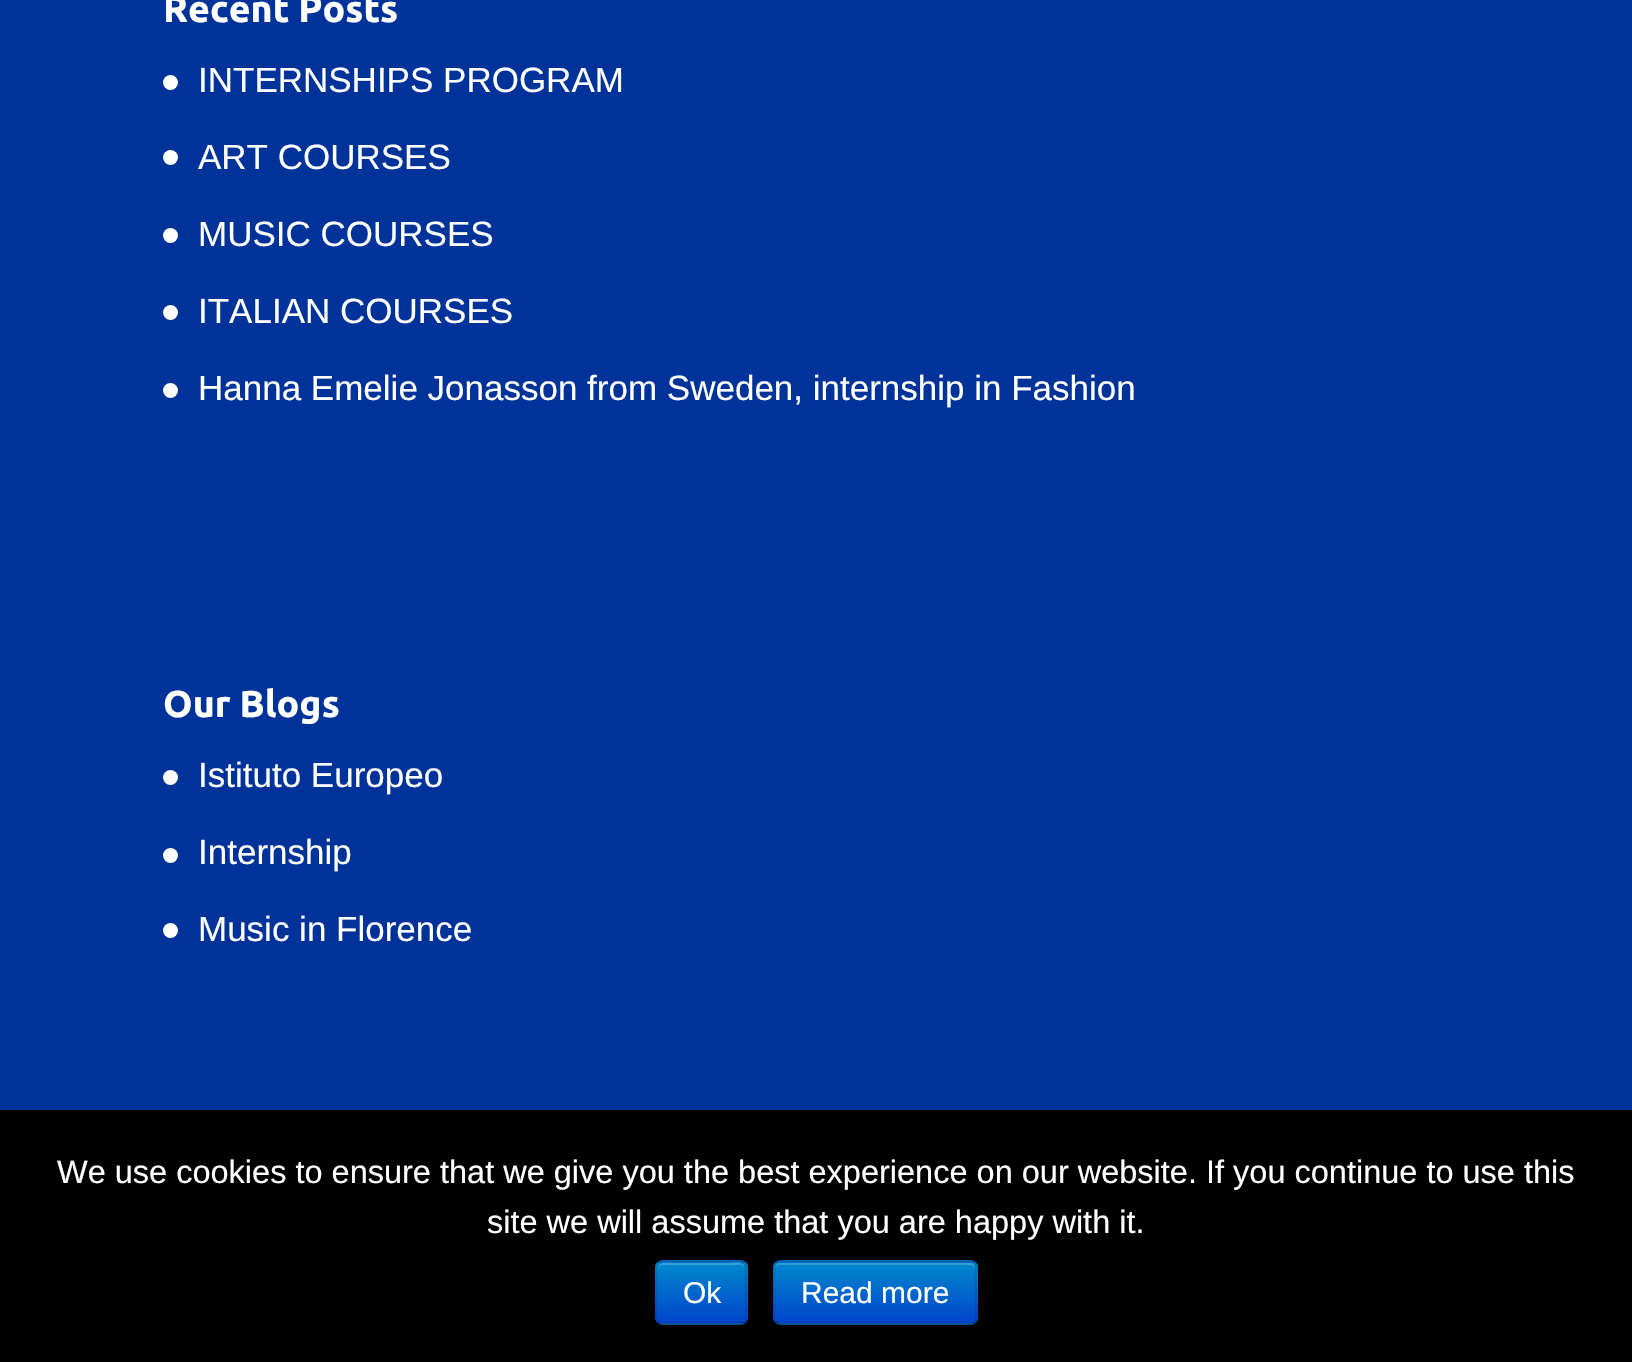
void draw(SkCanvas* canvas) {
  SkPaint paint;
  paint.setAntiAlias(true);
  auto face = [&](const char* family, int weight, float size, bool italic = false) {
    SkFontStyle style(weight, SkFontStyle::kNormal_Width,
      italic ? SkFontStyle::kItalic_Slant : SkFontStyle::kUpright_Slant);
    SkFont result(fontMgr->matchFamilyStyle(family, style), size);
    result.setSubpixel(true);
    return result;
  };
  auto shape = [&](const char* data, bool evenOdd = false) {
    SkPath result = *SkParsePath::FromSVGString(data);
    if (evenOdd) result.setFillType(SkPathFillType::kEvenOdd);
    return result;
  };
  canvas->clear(0xff003399);
  paint.setColor(0xffffffff);
  canvas->drawCircle(170.5f, 82.5f, 7.5f, paint);
  canvas->drawCircle(170.5f, 157.5f, 7.5f, paint);
  canvas->drawCircle(170.5f, 235.5f, 7.5f, paint);
  canvas->drawCircle(170.5f, 312.5f, 7.5f, paint);
  canvas->drawCircle(170.5f, 390.5f, 7.5f, paint);
  canvas->drawCircle(170.5f, 777.5f, 7.5f, paint);
  canvas->drawCircle(170.5f, 855.5f, 7.5f, paint);
  canvas->drawCircle(170.5f, 930.5f, 7.5f, paint);
  paint.setColor(0xff000000);
  canvas->drawRect(SkRect::MakeXYWH(0, 1110, 1632, 252), paint);
  paint.setColor(0xff006dcc);
  canvas->drawRoundRect(SkRect::MakeXYWH(655, 1260, 93, 65), 8, 8, paint);
  canvas->save();
  canvas->clipPath(shape("M663 1260H740C744.5 1260 748 1263.5 748 1268V1317C748 1321.5 744.5 1325 740 1325H663C658.5 1325 655 1321.5 655 1317V1268C655 1263.5 658.5 1260 663 1260Z"), true);
  {
    const SkColor colors[] = {0xff0088cc, 0xff0044cc};
    const float stops[] = {0, 1};
    const SkPoint ends[] = {{701, 1263}, {701, 1323}};
    paint.setShader(SkGradientShader::MakeLinear(ends, colors, stops, 2, SkTileMode::kClamp));
    paint.setAlpha(255);
  }
  canvas->drawRect(SkRect::MakeXYWH(655, 1263, 93, 60), paint);
  canvas->restore();
  paint.setShader(nullptr);
  paint.setColor(0xff339fd6);
  canvas->drawPath(shape("M662 1265H740C743 1265 745 1267 745 1270C745 1260 736 1263 727 1263H676C667 1263 658 1260 658 1270C658 1267 660 1265 662 1265Z"), paint);
  paint.setStroke(true);
  paint.setStrokeWidth(2.5f);
  paint.setColor(0x40000000);
  canvas->drawPath(shape("M744.5 1322C743 1323 741.5 1324 740 1324H662.5C661 1324 659.5 1323 658 1322"), paint);
  paint.setColor(0x1a000000);
  canvas->drawPath(shape("M658 1322C657 1320.5 656 1319 656 1317.5V1267.5C656 1266 657 1264.5 658 1263C659.5 1262 661 1261 662.5 1261H740C741.5 1261 743 1262 744.5 1263C745.5 1264.5 746 1266 746 1267.5V1317.5C746 1319 745.5 1320.5 744.5 1322"), paint);
  paint.setStroke(false);
  paint.setColor(0xff006dcc);
  canvas->drawRoundRect(SkRect::MakeXYWH(773, 1260, 205, 65), 8, 8, paint);
  canvas->save();
  canvas->clipPath(shape("M781 1260H970C974.5 1260 978 1263.5 978 1268V1317C978 1321.5 974.5 1325 970 1325H781C776.5 1325 773 1321.5 773 1317V1268C773 1263.5 776.5 1260 781 1260Z"), true);
  {
    const SkColor colors[] = {0xff0088cc, 0xff0044cc};
    const float stops[] = {0, 1};
    const SkPoint ends[] = {{875, 1263}, {875, 1323}};
    paint.setShader(SkGradientShader::MakeLinear(ends, colors, stops, 2, SkTileMode::kClamp));
    paint.setAlpha(255);
  }
  canvas->drawRect(SkRect::MakeXYWH(773, 1263, 205, 60), paint);
  canvas->restore();
  paint.setShader(nullptr);
  paint.setColor(0x33ffffff);
  canvas->drawPath(shape("M780 1265H970C973 1265 975 1267 975 1270V1268C975 1265 973 1263 970 1263H780C777 1263 775 1265 775 1268V1270C775 1267 777 1265 780 1265Z"), paint);
  paint.setStroke(true);
  paint.setColor(0x40000000);
  canvas->drawPath(shape("M974.5 1322C973 1323 971.5 1324 970 1324H780C778.5 1324 777 1323 775.5 1322"), paint);
  paint.setColor(0x1a000000);
  canvas->drawPath(shape("M775.5 1322C772.5 1319 774 1312.5 774 1309V1292.5C774 1253.5 768.5 1261 811.5 1261H970C978 1261.5 976 1271 976 1276V1309C976 1312.5 977.5 1319 974.5 1322"), paint);
  auto f0 = face("Ubuntu", 700, 37.5f);
  paint.setStroke(false);
  paint.setColor(0xffffffff);
  canvas->drawString("Recent Posts", 163, 22, f0, paint);
  auto f1 = face("Liberation Sans", 400, 35);
  {
    const struct { const char* s; float x, y; } items[] = {
      {"INTERNSHIPS PROGRAM", 198, 92},
      {"ART COURSES", 198, 169},
      {"MUSIC COURSES", 198, 246},
      {"ITALIAN COURSES", 198, 323},
      {"Hanna Emelie Jonasson from Sweden, internship in Fashion", 198, 400},
    };
    for (auto [s, x, y] : items) {
      canvas->drawString(s, x, y, f1, paint);
    }
  }
  canvas->drawString("Our Blogs", 163, 717, f0, paint);
  {
    const struct { const char* s; float x, y; } items[] = {
      {"Istituto Europeo", 198, 787},
      {"Internship", 198, 864},
      {"Music in Florence", 198, 941},
    };
    for (auto [s, x, y] : items) {
      canvas->drawString(s, x, y, f1, paint);
    }
  }
  auto f2 = face("Liberation Sans", 400, 32.5f);
  canvas->drawString("We use cookies to ensure that we give you the best experience on our website. If you continue to use this", 57, 1183, f2, paint);
  canvas->drawString("site we will assume that you are happy with it.", 487, 1233, f2, paint);
  auto f3 = face("Liberation Sans", 400, 30);
  canvas->drawString("Ok", 683, 1303, f3, paint);
  canvas->drawString("Read more", 801, 1303, f3, paint);
}
